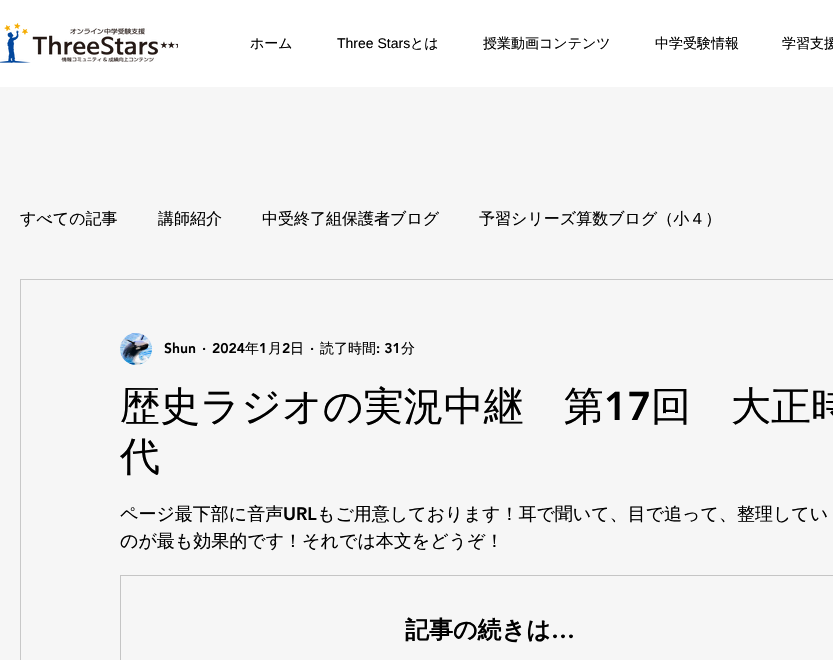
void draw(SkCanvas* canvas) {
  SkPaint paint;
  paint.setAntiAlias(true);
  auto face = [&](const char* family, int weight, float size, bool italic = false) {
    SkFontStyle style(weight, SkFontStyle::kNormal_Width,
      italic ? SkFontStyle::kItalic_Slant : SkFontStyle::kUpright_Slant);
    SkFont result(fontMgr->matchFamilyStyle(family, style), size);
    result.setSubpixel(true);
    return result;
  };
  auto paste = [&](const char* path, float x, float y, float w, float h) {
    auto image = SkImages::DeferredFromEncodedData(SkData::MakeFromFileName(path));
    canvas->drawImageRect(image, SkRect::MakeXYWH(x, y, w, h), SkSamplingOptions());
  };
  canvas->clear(0xfff6f6f6);
  paint.setColor(0xffffffff);
  canvas->drawRect(SkRect::MakeXYWH(0, 0, 833, 87), paint);
  paste("img/1.png", 0, 23, 178, 40);
  paint.setStroke(true);
  paint.setStrokeWidth(1);
  paint.setColor(0xffc8c8c8);
  canvas->drawRect(SkRect::MakeXYWH(20.5f, 279.5f, 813, 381), paint);
  paste("img/2.png", 120, 333, 32, 32);
  paint.setColor(0xffc5c5c5);
  canvas->drawRect(SkRect::MakeXYWH(120.5f, 575.5f, 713, 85), paint);
  auto f0 = face("WenQuanYi Zen Hei", 500, 14);
  paint.setStroke(false);
  paint.setColor(0xff000000);
  canvas->drawString("ホーム", 250, 48, f0, paint);
  auto f1 = face("Liberation Sans", 400, 14);
  canvas->drawString("Three Stars", 337, 48, f1, paint);
  {
    const struct { const char* s; float x, y; } items[] = {
      {"とは", 410, 48},
      {"授業動画コンテンツ", 483, 48},
      {"中学受験情報", 655, 48},
      {"学習支援", 782, 48},
    };
    for (auto [s, x, y] : items) {
      canvas->drawString(s, x, y, f0, paint);
    }
  }
  auto f2 = face("WenQuanYi Zen Hei", 500, 16);
  {
    const struct { const char* s; float x, y; } items[] = {
      {"すべての記事", 20, 224},
      {"講師紹介", 158, 224},
      {"中受終了組保護者ブログ", 262, 224},
      {"予習シリーズ算数ブログ（小４）", 479, 224},
    };
    for (auto [s, x, y] : items) {
      canvas->drawString(s, x, y, f2, paint);
    }
  }
  auto f3 = face("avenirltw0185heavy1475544", 900, 14);
  {
    const struct { const char* s; float x, y; } items[] = {
      {"Shun", 164, 353},
      {"·", 202, 353},
      {"2024", 212, 353},
    };
    for (auto [s, x, y] : items) {
      canvas->drawString(s, x, y, f3, paint);
    }
  }
  canvas->drawString("年", 245, 353, f0, paint);
  canvas->drawString("1", 259, 353, f3, paint);
  canvas->drawString("月", 268, 353, f0, paint);
  canvas->drawString("2", 282, 353, f3, paint);
  canvas->drawString("日", 290, 353, f0, paint);
  canvas->drawString("·", 310, 353, f3, paint);
  canvas->drawString("読了時間", 320, 353, f0, paint);
  canvas->drawString(": 31", 376, 353, f3, paint);
  canvas->drawString("分", 401, 353, f0, paint);
  auto f4 = face("WenQuanYi Zen Hei", 500, 40);
  canvas->drawString("歴史ラジオの実況中継　第", 120, 420, f4, paint);
  auto f5 = face("avenirltw0185heavy1475544", 900, 40);
  canvas->drawString("17", 604, 420, f5, paint);
  canvas->drawString("回　大正時", 651, 420, f4, paint);
  canvas->drawString("代", 120, 470, f4, paint);
  auto f6 = face("WenQuanYi Zen Hei", 500, 18);
  canvas->drawString("ページ最下部に音声", 120, 520, f6, paint);
  auto f7 = face("avenirltw0185heavy1475544", 900, 18);
  canvas->drawString("URL", 283, 520, f7, paint);
  canvas->drawString("もご用意しております！耳で聞いて、目で追って、整理してい", 317, 520, f6, paint);
  canvas->drawString("のが最も効果的です！それでは本文をどうぞ！", 120, 547, f6, paint);
  auto f8 = face("WenQuanYi Zen Hei", 700, 24);
  canvas->drawString("記事の続きは", 405, 638, f8, paint);
  auto f9 = face("avenirltw0185heavy1475544", 900, 24);
  canvas->drawString("…", 551, 638, f9, paint);
}
